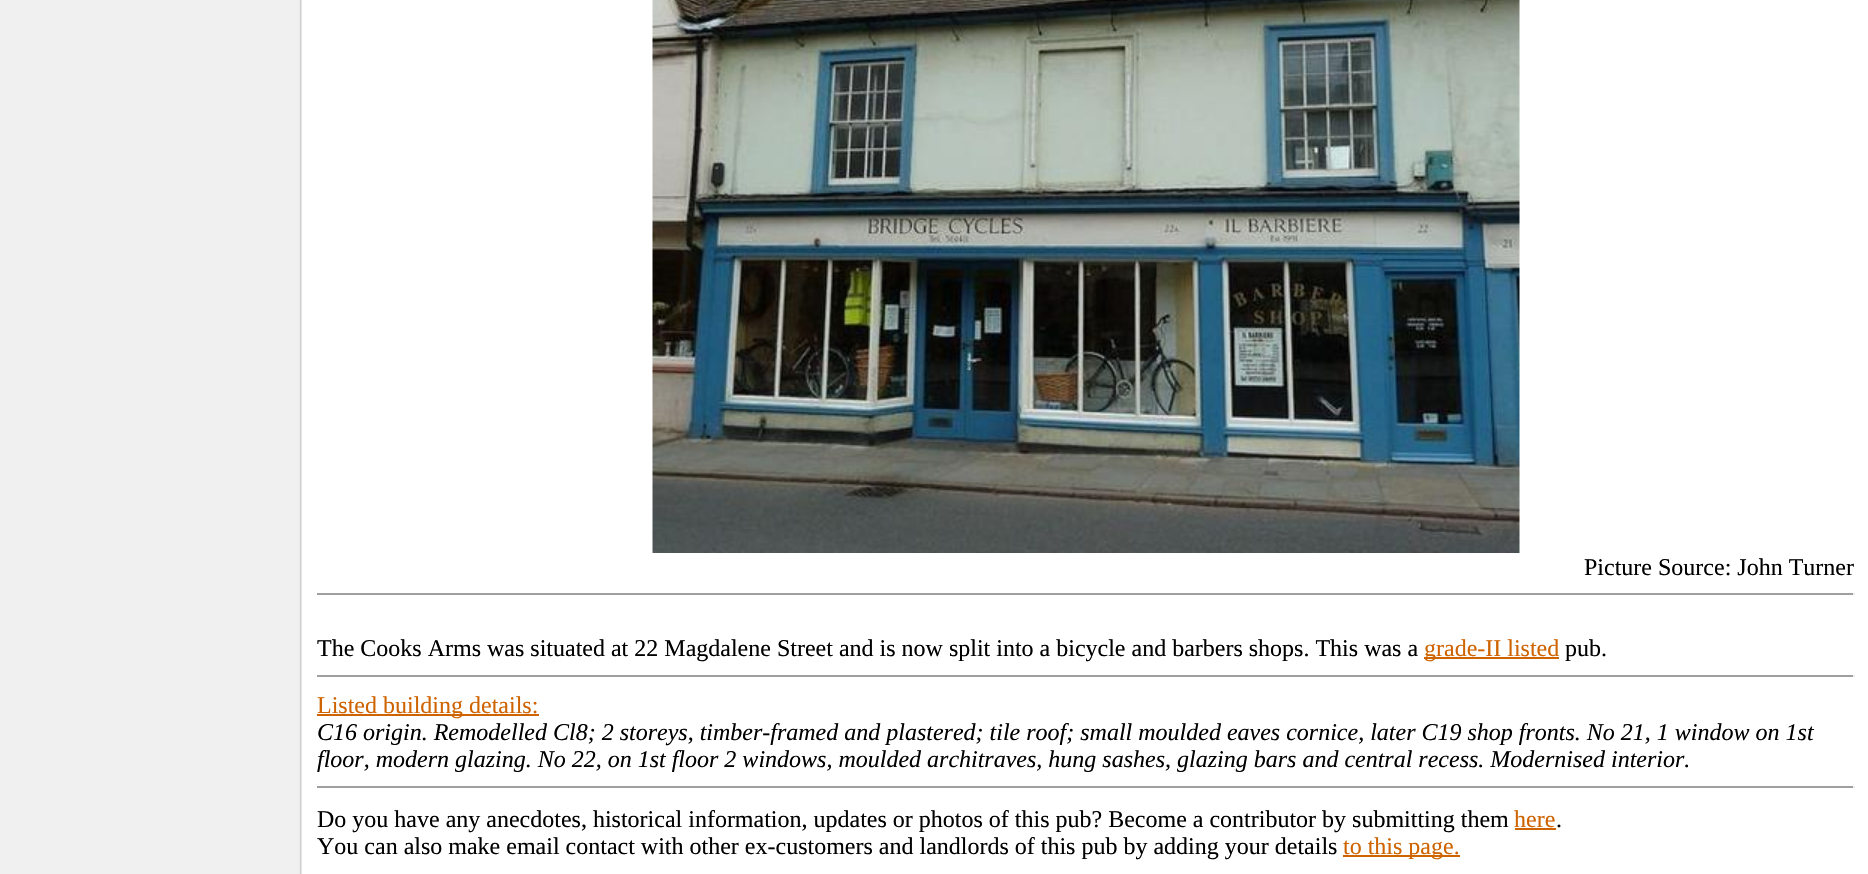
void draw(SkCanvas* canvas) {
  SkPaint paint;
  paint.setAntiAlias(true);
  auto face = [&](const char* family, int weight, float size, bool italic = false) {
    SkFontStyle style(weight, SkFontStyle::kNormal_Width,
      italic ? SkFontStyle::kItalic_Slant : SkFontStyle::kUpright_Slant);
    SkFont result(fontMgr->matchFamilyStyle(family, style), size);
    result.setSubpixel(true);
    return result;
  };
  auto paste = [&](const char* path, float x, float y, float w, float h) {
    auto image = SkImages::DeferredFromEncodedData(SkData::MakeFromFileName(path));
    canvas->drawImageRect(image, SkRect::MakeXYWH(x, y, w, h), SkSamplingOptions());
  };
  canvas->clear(0xffffffff);
  paste("img/1.png", 0, 0, 302, 874);
  paste("img/2.png", 652, 0, 868, 553);
  {
    const struct { float x, y, w, h; SkColor color; } items[] = {
      {317, 593, 1537, 2, 0xff9f9f9f},
      {1853, 593, 2, 2, 0xffeeeeee},
      {1424, 657, 135, 2, 0xffce6300},
      {317, 675, 1537, 2, 0xff9f9f9f},
      {1853, 675, 2, 2, 0xffeeeeee},
      {317, 714, 222, 2, 0xffce6300},
      {317, 786, 1537, 2, 0xff9f9f9f},
      {1853, 786, 2, 2, 0xffeeeeee},
      {1515, 828, 41, 2, 0xffce6300},
      {1343, 855, 117, 2, 0xffce6300},
    };
    for (auto [x, y, w, h, color] : items) {
      paint.setColor(color);
      canvas->drawRect(SkRect::MakeXYWH(x, y, w, h), paint);
    }
  }
  auto f0 = face("Liberation Serif", 400, 24);
  paint.setColor(0xff000000);
  canvas->drawString("Picture Source: John Turner", 1584, 575, f0, paint);
  canvas->drawString("The Cooks Arms was situated at 22 Magdalene Street and is now split into a bicycle and barbers shops. This was a", 317, 656, f0, paint);
  paint.setColor(0xffce6300);
  canvas->drawString("grade-II listed", 1424, 656, f0, paint);
  paint.setColor(0xff000000);
  canvas->drawString("pub.", 1565, 656, f0, paint);
  paint.setColor(0xffce6300);
  canvas->drawString("Listed building details:", 317, 713, f0, paint);
  auto f1 = face("Liberation Serif", 400, 24, true);
  paint.setColor(0xff000000);
  canvas->drawString("C16 origin. Remodelled Cl8; 2 storeys, timber-framed and plastered; tile roof; small moulded eaves cornice, later C19 shop fronts. No 21, 1 window on 1st", 317, 740, f1, paint);
  canvas->drawString("floor, modern glazing. No 22, on 1st floor 2 windows, moulded architraves, hung sashes, glazing bars and central recess. Modernised interior.", 317, 767, f1, paint);
  canvas->drawString("Do you have any anecdotes, historical information, updates or photos of this pub? Become a contributor by submitting them", 317, 827, f0, paint);
  paint.setColor(0xffce6300);
  canvas->drawString("here", 1514, 827, f0, paint);
  paint.setColor(0xff000000);
  canvas->drawString(".", 1556, 827, f0, paint);
  canvas->drawString("You can also make email contact with other ex-customers and landlords of this pub by adding your details", 317, 854, f0, paint);
  paint.setColor(0xffce6300);
  canvas->drawString("to this page.", 1343, 854, f0, paint);
}
